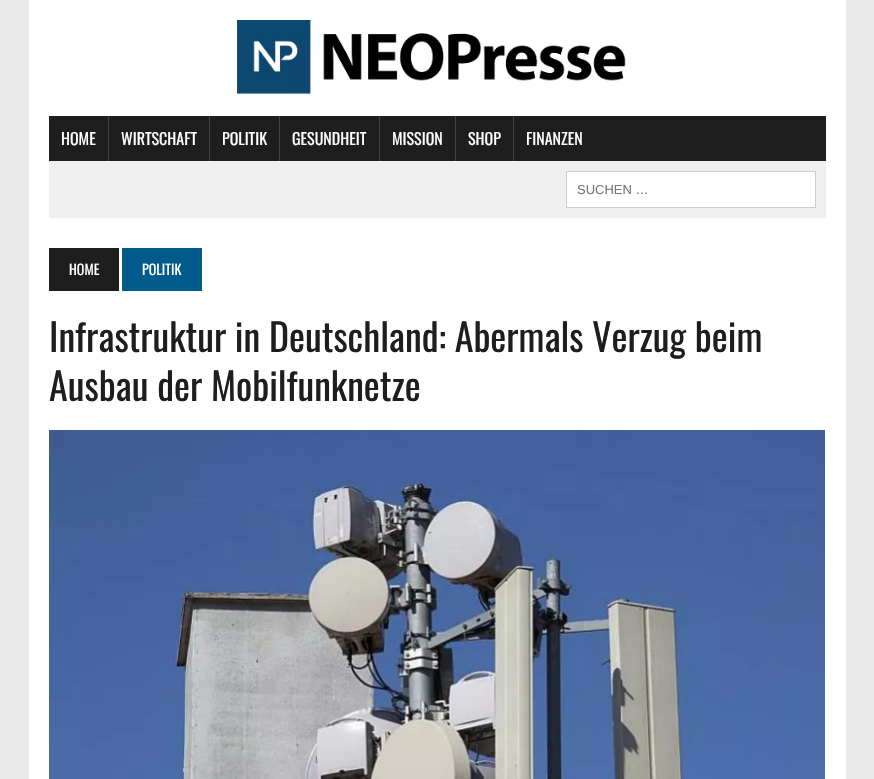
void draw(SkCanvas* canvas) {
  SkPaint paint;
  paint.setAntiAlias(true);
  auto face = [&](const char* family, int weight, float size, bool italic = false) {
    SkFontStyle style(weight, SkFontStyle::kNormal_Width,
      italic ? SkFontStyle::kItalic_Slant : SkFontStyle::kUpright_Slant);
    SkFont result(fontMgr->matchFamilyStyle(family, style), size);
    result.setSubpixel(true);
    return result;
  };
  auto paste = [&](const char* path, float x, float y, float w, float h) {
    auto image = SkImages::DeferredFromEncodedData(SkData::MakeFromFileName(path));
    canvas->drawImageRect(image, SkRect::MakeXYWH(x, y, w, h), SkSamplingOptions());
  };
  canvas->clear(0xffe9e9e9);
  paint.setColor(0xffffffff);
  canvas->drawRect(SkRect::MakeXYWH(29, 0, 817, 779), paint);
  paste("img/1.png", 237, 20, 389, 75);
  {
    const struct { float x, y, w, h; SkColor color; } items[] = {
      {49, 116, 777, 45, 0xff1f1e1e},
      {108, 116, 1, 45, 0xff424242},
      {209, 116, 1, 45, 0xff424242},
      {279, 116, 1, 45, 0xff424242},
      {379, 116, 1, 45, 0xff424242},
      {455, 116, 1, 45, 0xff424242},
      {513, 116, 1, 45, 0xff424242},
      {49, 161, 777, 57, 0xffefefef},
    };
    for (auto [x, y, w, h, color] : items) {
      paint.setColor(color);
      canvas->drawRect(SkRect::MakeXYWH(x, y, w, h), paint);
    }
  }
  paint.setColor(0xffffffff);
  canvas->drawRect(SkRect::MakeXYWH(566.5f, 171.5f, 249, 36), paint);
  paint.setStroke(true);
  paint.setStrokeWidth(1);
  paint.setColor(0xffcdcdcd);
  canvas->drawRect(SkRect::MakeXYWH(566.5f, 171.5f, 249, 36), paint);
  paint.setStroke(false);
  paint.setColor(0xff1f1e1e);
  canvas->drawRect(SkRect::MakeXYWH(49, 248, 70, 43), paint);
  paint.setColor(0xff005a8c);
  canvas->drawRect(SkRect::MakeXYWH(122, 248, 80, 43), paint);
  paste("img/2.png", 49, 430, 776, 349);
  auto f0 = face("Oswald", 400, 16);
  paint.setColor(0xffffffff);
  {
    const struct { const char* s; float x, y; } items[] = {
      {"HOME", 61, 145},
      {"WIRTSCHAFT", 121, 145},
      {"POLITIK", 222, 145},
      {"GESUNDHEIT", 292, 145},
      {"MISSION", 392, 145},
      {"SHOP", 468, 145},
      {"FINANZEN", 526, 145},
    };
    for (auto [s, x, y] : items) {
      canvas->drawString(s, x, y, f0, paint);
    }
  }
  auto f1 = face("Liberation Sans", 400, 13);
  paint.setColor(0xff757575);
  canvas->drawString("SUCHEN …", 577, 194, f1, paint);
  auto f2 = face("Oswald", 400, 14);
  paint.setColor(0xffffffff);
  canvas->drawString("HOME", 69, 275, f2, paint);
  canvas->drawString("POLITIK", 142, 275, f2, paint);
  auto f3 = face("Oswald", 400, 38);
  paint.setColor(0xff1f1e1e);
  canvas->drawString("Infrastruktur in Deutschland: Abermals Verzug beim", 49, 352, f3, paint);
  canvas->drawString("Ausbau der Mobilfunknetze", 49, 401, f3, paint);
}
